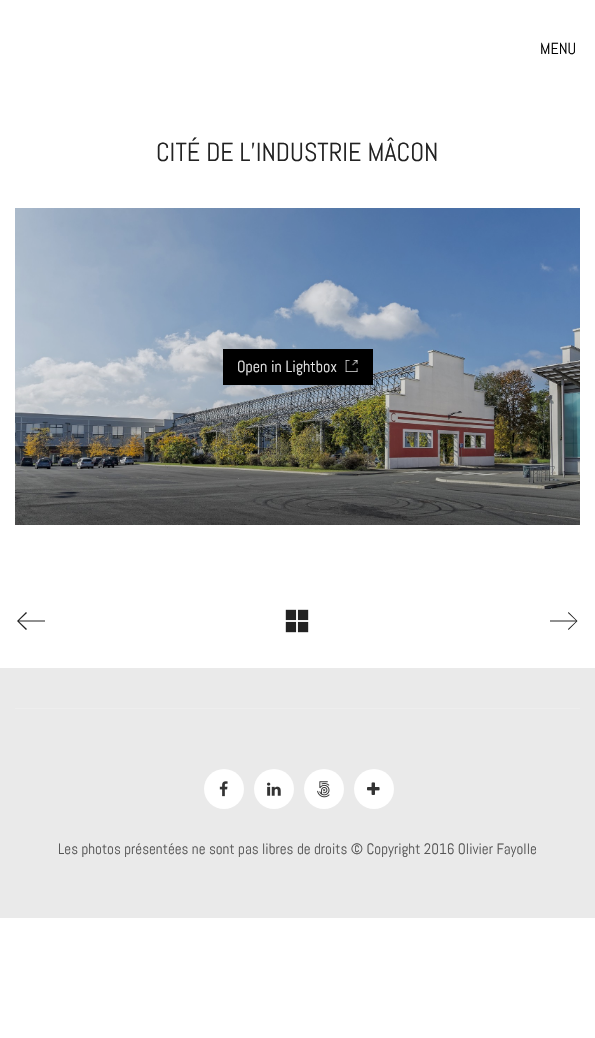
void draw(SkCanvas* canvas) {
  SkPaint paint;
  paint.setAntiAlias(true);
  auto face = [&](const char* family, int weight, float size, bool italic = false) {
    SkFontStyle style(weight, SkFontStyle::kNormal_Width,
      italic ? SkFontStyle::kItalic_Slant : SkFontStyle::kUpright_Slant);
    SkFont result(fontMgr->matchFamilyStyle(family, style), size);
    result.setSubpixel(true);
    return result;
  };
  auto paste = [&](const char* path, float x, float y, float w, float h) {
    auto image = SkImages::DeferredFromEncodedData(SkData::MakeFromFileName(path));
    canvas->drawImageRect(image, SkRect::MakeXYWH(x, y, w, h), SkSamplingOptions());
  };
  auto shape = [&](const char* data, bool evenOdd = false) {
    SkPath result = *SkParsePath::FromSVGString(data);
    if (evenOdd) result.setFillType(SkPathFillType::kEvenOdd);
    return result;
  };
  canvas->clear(0xffffffff);
  paste("img/1.png", 15, 208, 565, 317);
  paint.setColor(0xff000000);
  canvas->drawRect(SkRect::MakeXYWH(223, 349, 150, 36), paint);
  paste("img/2.png", 345, 360, 13, 12);
  paint.setColor(0xff222222);
  canvas->drawPath(shape("M45 620.5H19L27 613L26 612L17 621L26 630L27 629L19 621.5H45Z"), paint);
  paste("img/3.png", 285, 609, 24, 24);
  canvas->drawPath(shape("M550 620.5H576L568 613L568.5 612L577.5 621L568.5 630L568 629L576 621.5H550Z"), paint);
  paint.setColor(0xffeaeaea);
  canvas->drawRect(SkRect::MakeXYWH(0, 668, 595, 250), paint);
  paint.setColor(0xffeeeeee);
  canvas->drawRect(SkRect::MakeXYWH(15, 708, 565, 1), paint);
  paint.setColor(0xffffffff);
  canvas->drawCircle(224, 789, 20, paint);
  paste("img/4.png", 219, 781, 9, 16);
  canvas->drawCircle(274, 789, 20, paint);
  paste("img/5.png", 267, 782, 14, 14);
  canvas->drawCircle(324, 789, 20, paint);
  paste("img/6.png", 317, 781, 13, 17);
  canvas->drawCircle(374, 789, 20, paint);
  paste("img/7.png", 367, 782, 13, 13);
  auto f0 = face("Abel", 400, 16);
  paint.setColor(0xff000000);
  canvas->drawString("MENU", 540, 54, f0, paint);
  auto f1 = face("Abel", 400, 26);
  paint.setColor(0xff222222);
  canvas->drawString("CITÉ DE L’INDUSTRIE MÂCON", 156, 161, f1, paint);
  paint.setColor(0xffe6e6e6);
  canvas->drawString("Open in Lightbox", 237, 372, f0, paint);
  auto f2 = face("Abel", 400, 15);
  paint.setColor(0xff555555);
  canvas->drawString("Les photos présentées ne sont pas libres de droits © Copyright 2016 Olivier Fayolle", 58, 854, f2, paint);
}
